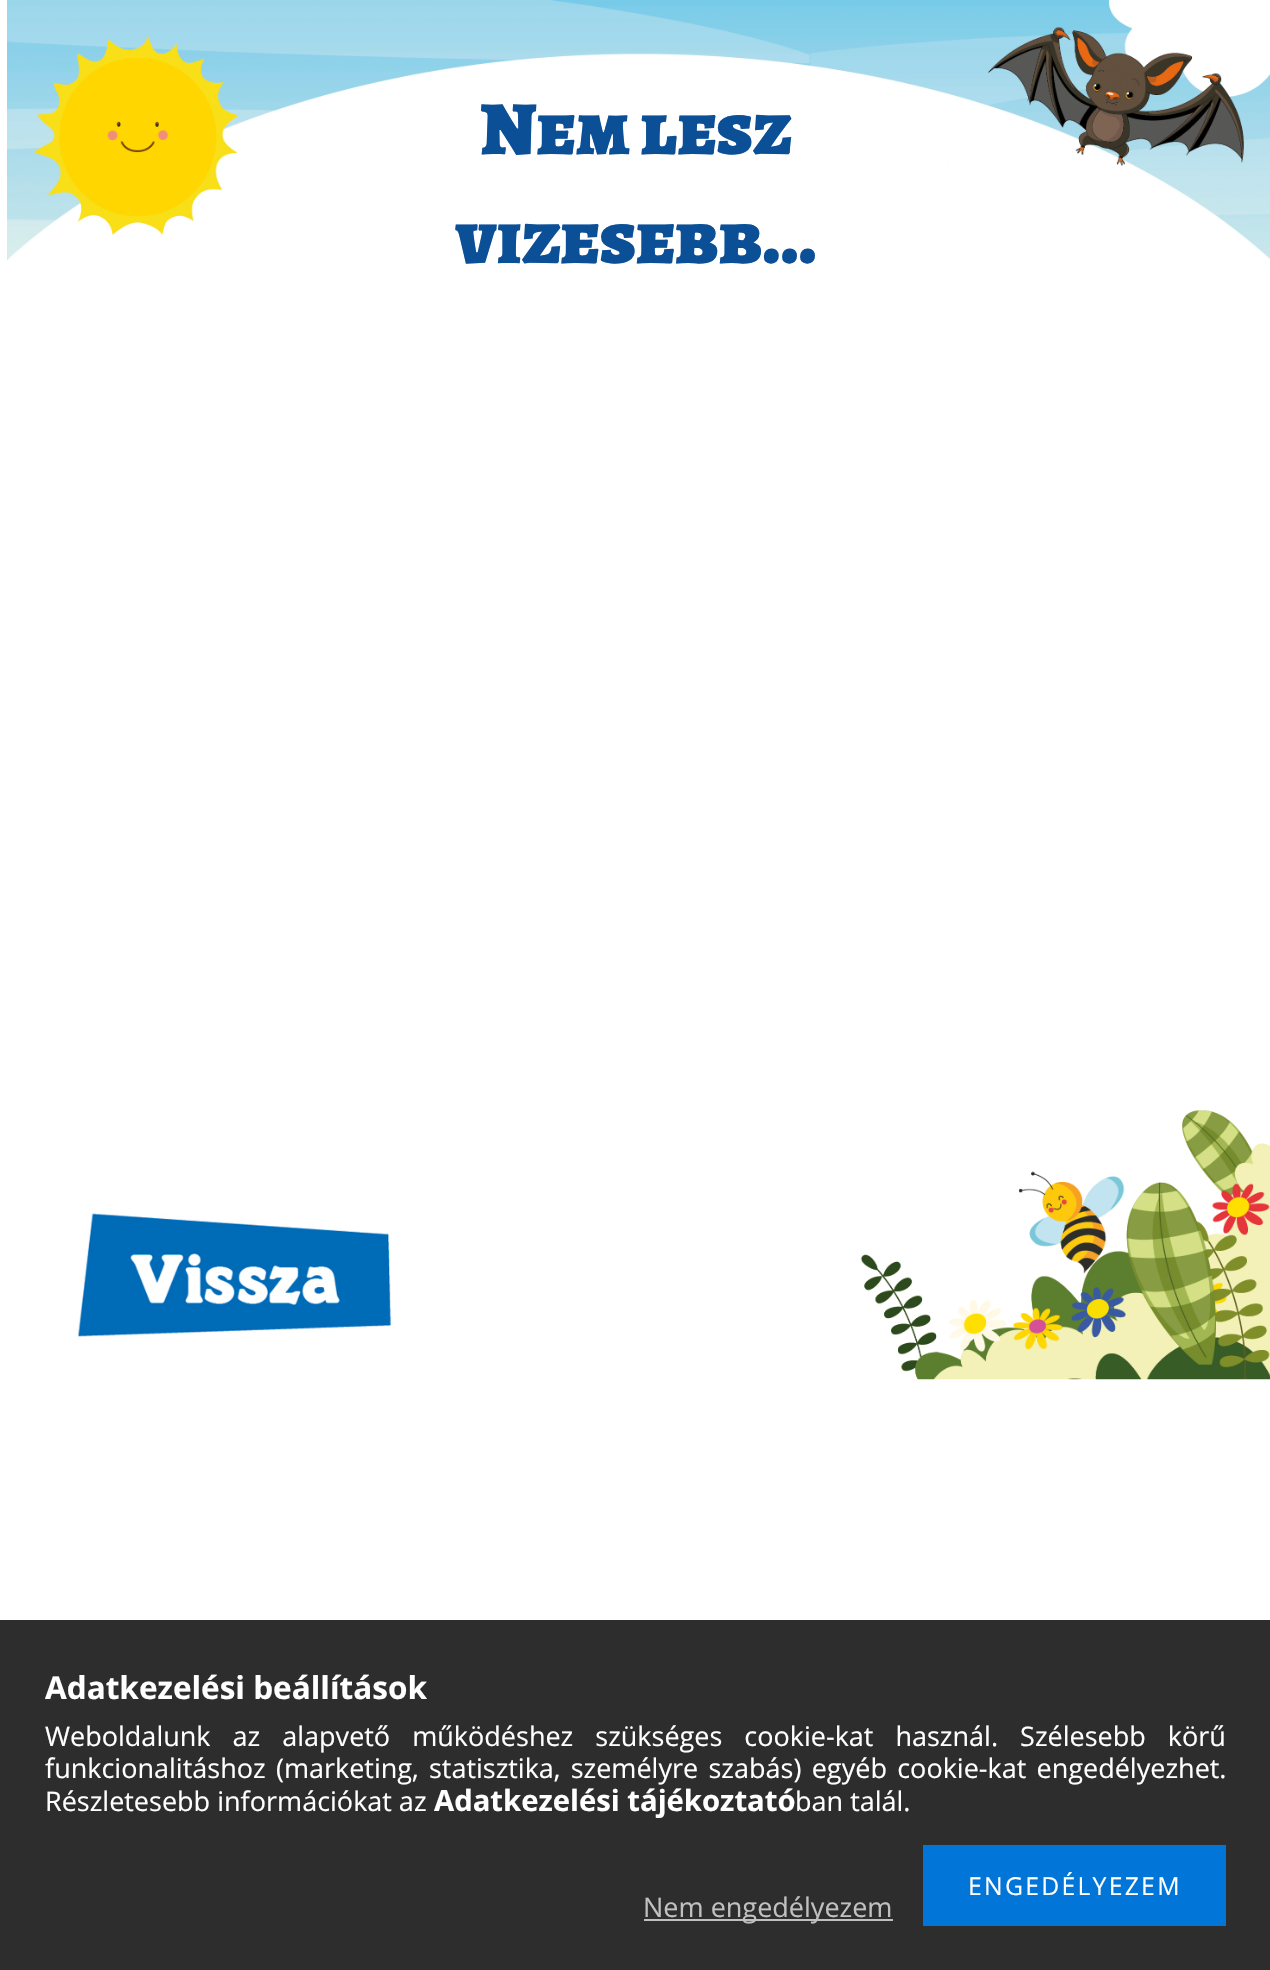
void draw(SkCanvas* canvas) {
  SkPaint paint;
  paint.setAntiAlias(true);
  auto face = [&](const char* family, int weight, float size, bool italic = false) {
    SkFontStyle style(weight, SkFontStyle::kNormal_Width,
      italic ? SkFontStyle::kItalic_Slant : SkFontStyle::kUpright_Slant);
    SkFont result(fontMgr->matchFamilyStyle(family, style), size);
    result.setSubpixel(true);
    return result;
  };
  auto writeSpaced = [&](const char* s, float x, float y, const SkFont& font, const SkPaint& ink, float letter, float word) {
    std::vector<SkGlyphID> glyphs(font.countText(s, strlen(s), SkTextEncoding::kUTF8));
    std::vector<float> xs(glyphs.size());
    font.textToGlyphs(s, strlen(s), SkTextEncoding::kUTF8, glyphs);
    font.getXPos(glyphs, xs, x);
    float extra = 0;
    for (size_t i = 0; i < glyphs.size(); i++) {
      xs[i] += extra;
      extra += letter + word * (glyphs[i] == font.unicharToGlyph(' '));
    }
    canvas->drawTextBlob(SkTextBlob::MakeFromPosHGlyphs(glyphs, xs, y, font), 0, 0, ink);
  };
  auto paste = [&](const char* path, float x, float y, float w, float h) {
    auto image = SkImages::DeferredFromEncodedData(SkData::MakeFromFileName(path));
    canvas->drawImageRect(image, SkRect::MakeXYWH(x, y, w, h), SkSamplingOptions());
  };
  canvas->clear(0xffffffff);
  paste("img/1.png", 7, 0, 1263, 260);
  paste("img/2.png", 77, 1110, 1193, 270);
  {
    const struct { float x, y, w, h; SkColor color; } items[] = {
      {0, 1620, 1270, 350, 0xff2d2d2d},
      {923, 1845, 303, 81, 0xff0275d8},
      {644, 1919, 249, 2, 0xffc0c0c0},
    };
    for (auto [x, y, w, h, color] : items) {
      paint.setColor(color);
      canvas->drawRect(SkRect::MakeXYWH(x, y, w, h), paint);
    }
  }
  auto f0 = face("Alegreya SC", 900, 76.25f);
  paint.setColor(0xff0b5097);
  canvas->drawString("Nem lesz", 480, 154, f0, paint);
  canvas->drawString("vizesebb...", 455, 263, f0, paint);
  auto f1 = face("Open Sans", 700, 31.5f);
  paint.setColor(0xffffffff);
  canvas->drawString("Adatkezelési beállítások", 45, 1699, f1, paint);
  auto f2 = face("Open Sans", 400, 27);
  writeSpaced("Weboldalunk az alapvető működéshez szükséges cookie-kat használ. Szélesebb körű", 45, 1746, f2, paint, 0, 15);
  writeSpaced("funkcionalitáshoz (marketing, statisztika, személyre szabás) egyéb cookie-kat engedélyezhet.", 45, 1778, f2, paint, 0, 3.25f);
  canvas->drawString("Részletesebb információkat az", 45, 1811, f2, paint);
  auto f3 = face("Open Sans", 700, 29.25f);
  canvas->drawString("Adatkezelési tájékoztató", 434, 1811, f3, paint);
  canvas->drawString("ban talál.", 795, 1811, f2, paint);
  auto f4 = face("Open Sans", 400, 24.75f);
  writeSpaced("ENGEDÉLYEZEM", 968, 1895, f4, paint, 2.25f, 0);
  paint.setColor(0xffc0c0c0);
  canvas->drawString("Nem engedélyezem", 643, 1917, f2, paint);
}
